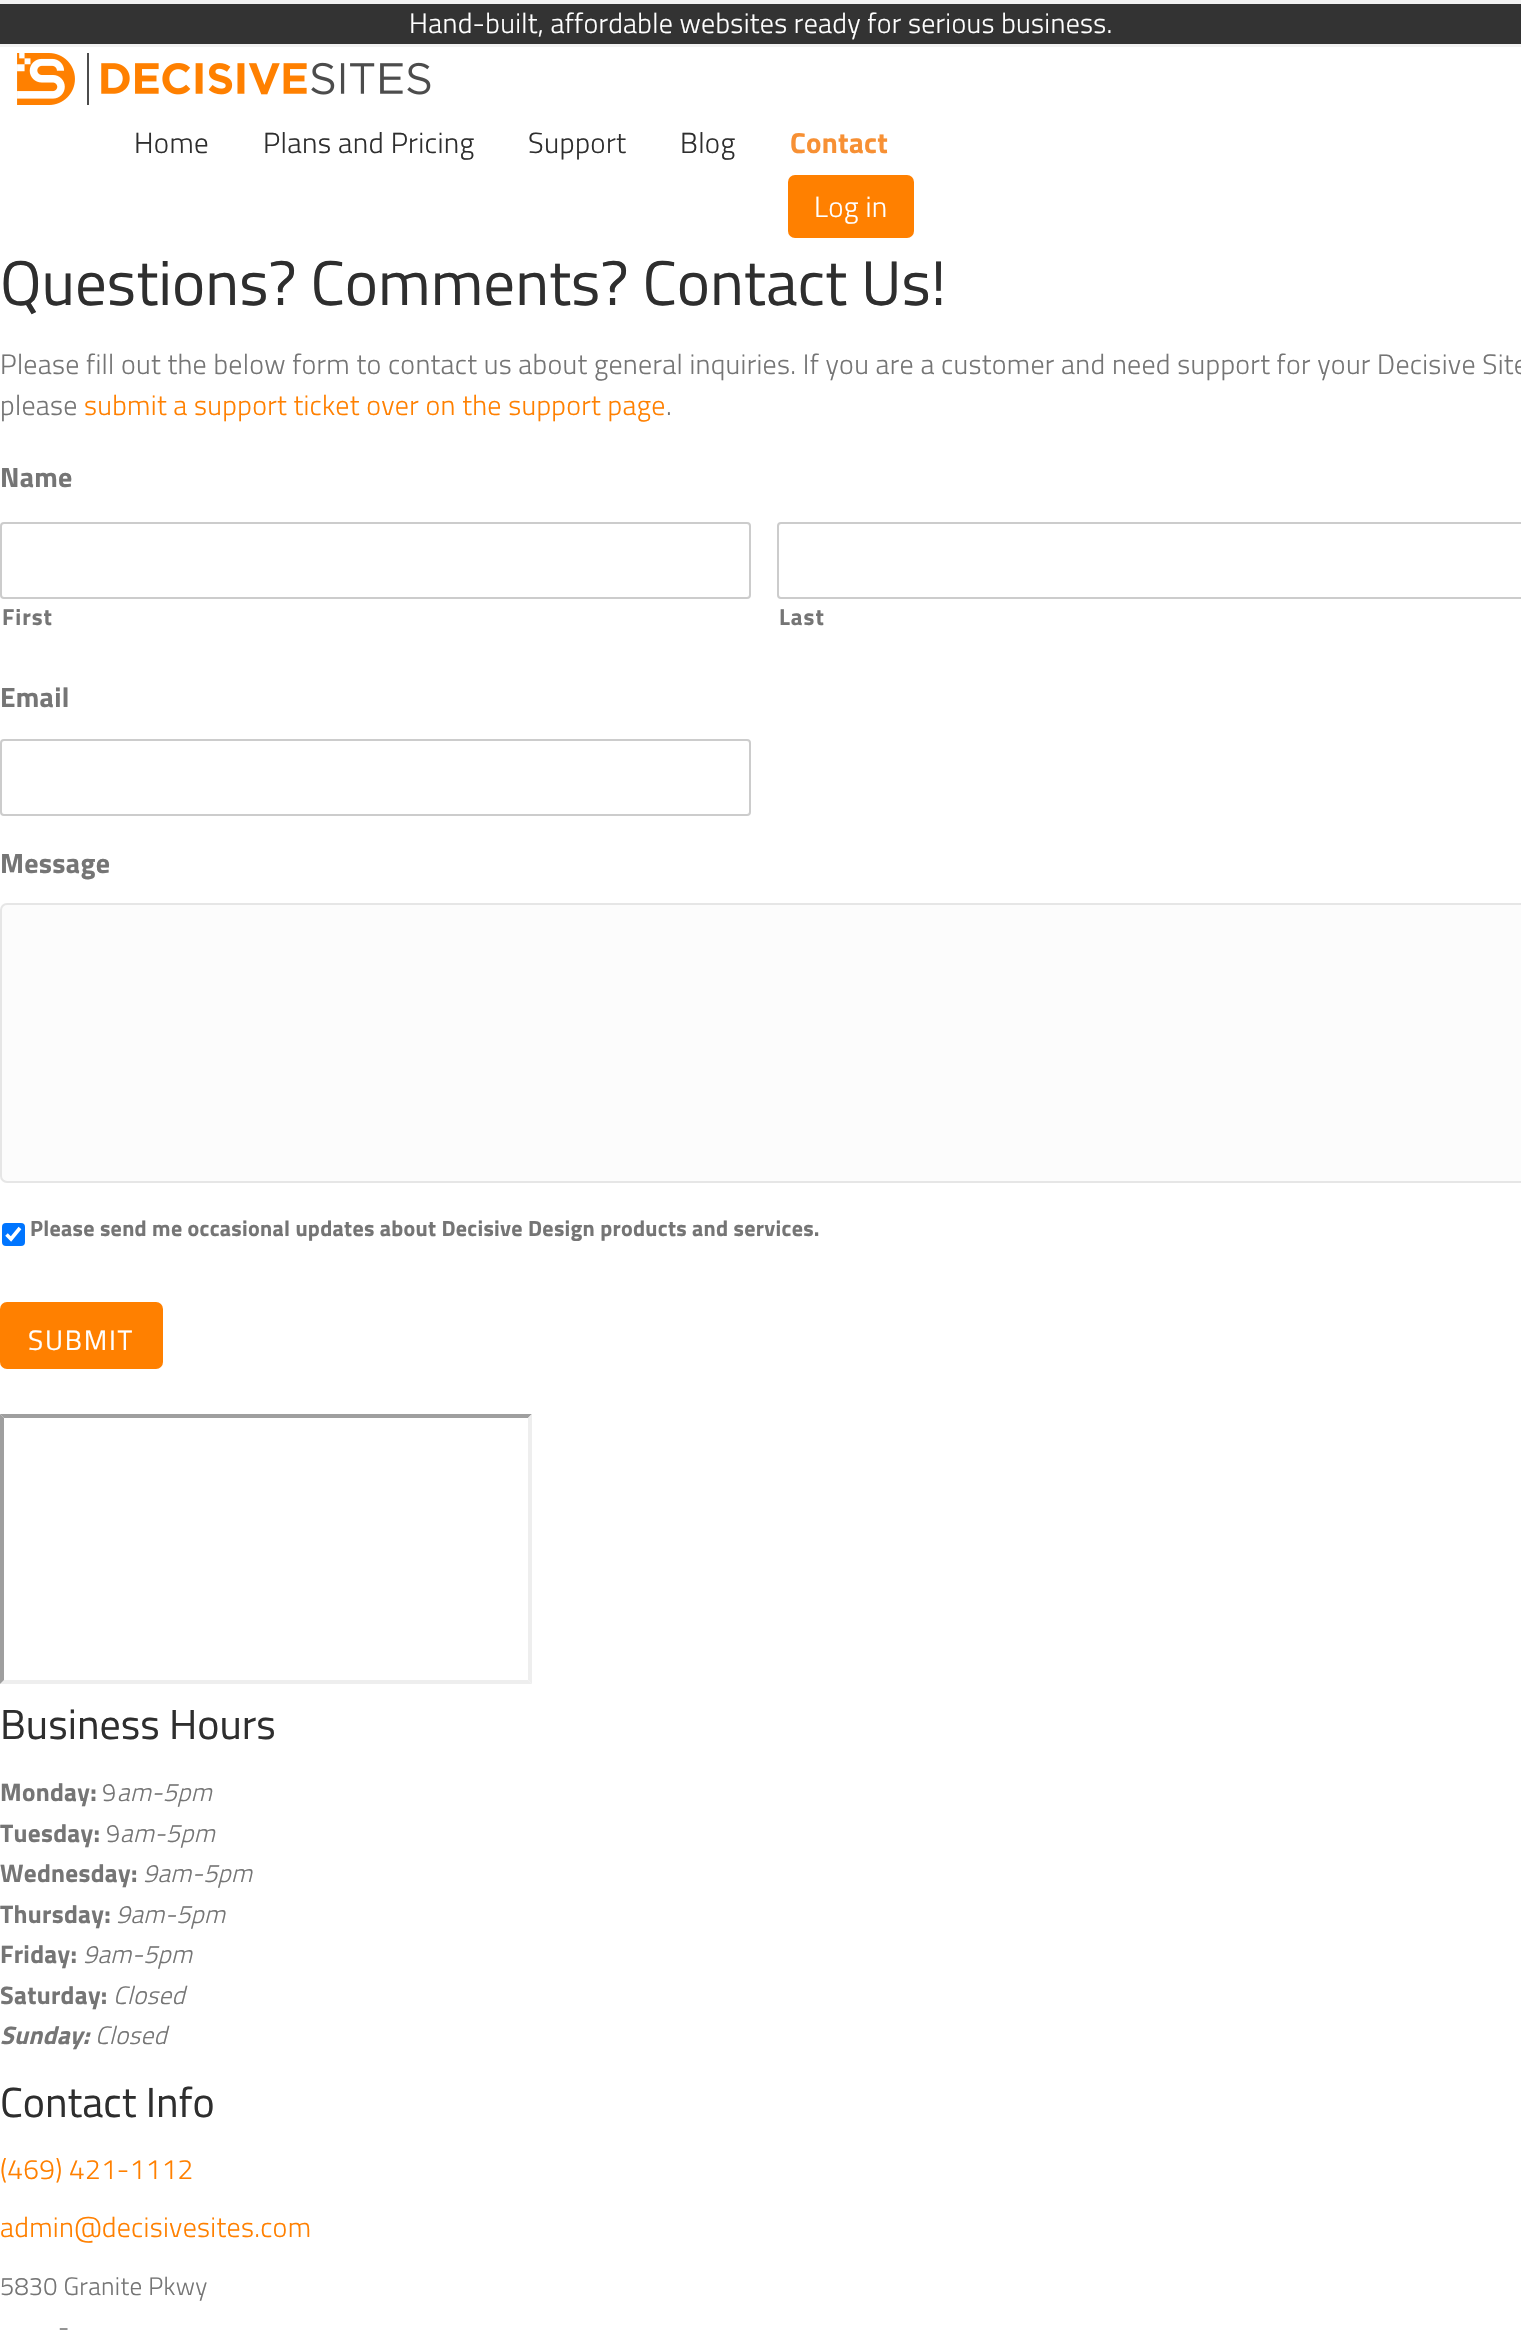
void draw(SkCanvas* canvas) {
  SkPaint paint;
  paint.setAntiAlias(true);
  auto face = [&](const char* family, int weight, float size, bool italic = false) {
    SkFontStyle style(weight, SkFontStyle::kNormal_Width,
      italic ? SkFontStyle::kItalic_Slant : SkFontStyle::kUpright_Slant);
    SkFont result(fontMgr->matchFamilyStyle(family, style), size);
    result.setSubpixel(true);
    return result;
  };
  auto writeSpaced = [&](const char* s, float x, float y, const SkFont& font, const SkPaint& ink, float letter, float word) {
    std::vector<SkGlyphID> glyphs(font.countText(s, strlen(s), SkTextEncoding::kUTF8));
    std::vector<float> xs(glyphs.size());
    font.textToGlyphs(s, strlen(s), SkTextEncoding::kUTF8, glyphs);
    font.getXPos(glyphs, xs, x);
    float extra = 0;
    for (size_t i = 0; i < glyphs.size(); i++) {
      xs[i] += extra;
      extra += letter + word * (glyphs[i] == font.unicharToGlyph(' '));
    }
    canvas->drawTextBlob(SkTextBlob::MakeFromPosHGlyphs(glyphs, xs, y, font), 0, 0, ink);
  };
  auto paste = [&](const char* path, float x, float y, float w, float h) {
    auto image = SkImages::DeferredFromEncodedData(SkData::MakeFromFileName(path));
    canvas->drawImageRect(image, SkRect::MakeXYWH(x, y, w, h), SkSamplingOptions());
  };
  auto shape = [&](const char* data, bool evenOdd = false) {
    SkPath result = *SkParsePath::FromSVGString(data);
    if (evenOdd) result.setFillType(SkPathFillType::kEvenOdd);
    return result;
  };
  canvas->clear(0xfff2f2f2);
  paint.setColor(0xff333333);
  canvas->drawRect(SkRect::MakeXYWH(0, 4, 1521, 40), paint);
  paint.setColor(0xffffffff);
  canvas->drawRect(SkRect::MakeXYWH(0, 47, 1521, 2283), paint);
  paste("img/1.png", 17, 53, 414, 52);
  paint.setColor(0xffff8000);
  canvas->drawRoundRect(SkRect::MakeXYWH(788, 175, 126, 63), 7, 7, paint);
  paint.setStroke(true);
  paint.setStrokeWidth(2);
  paint.setColor(0xffcccccc);
  canvas->drawRoundRect(SkRect::MakeXYWH(1, 523, 749, 75), 3, 3, paint);
  canvas->drawRoundRect(SkRect::MakeXYWH(778, 523, 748, 75), 3, 3, paint);
  canvas->drawRoundRect(SkRect::MakeXYWH(1, 740, 749, 75), 3, 3, paint);
  paint.setStroke(false);
  paint.setColor(0xfffcfcfc);
  canvas->drawRoundRect(SkRect::MakeXYWH(1, 904, 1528, 278), 6, 6, paint);
  paint.setStroke(true);
  paint.setColor(0xffe6e6e6);
  canvas->drawRoundRect(SkRect::MakeXYWH(1, 904, 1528, 278), 6, 6, paint);
  paint.setStroke(false);
  paint.setColor(0xff0075ff);
  canvas->drawRoundRect(SkRect::MakeXYWH(2, 1223, 23, 23), 4, 4, paint);
  paint.setStroke(true);
  paint.setStrokeWidth(3.6f);
  paint.setColor(0xffffffff);
  canvas->drawPath(shape("M6.5 1234.5L11 1239L20 1228"), paint);
  paint.setStroke(false);
  paint.setColor(0xffff8000);
  canvas->drawRoundRect(SkRect::MakeXYWH(0, 1302, 163, 67), 7, 7, paint);
  paint.setColor(0xff9f9f9f);
  canvas->drawPath(shape("M0 1414H532L528 1418H4Z"), paint);
  paint.setColor(0xffeeeeee);
  canvas->drawPath(shape("M532 1414V1684L528 1680V1418Z"), paint);
  canvas->drawPath(shape("M532 1684H0L4 1680H528Z"), paint);
  paint.setColor(0xff9f9f9f);
  canvas->drawPath(shape("M0 1684V1414L4 1418V1680Z"), paint);
  auto f0 = face("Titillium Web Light", 300, 28);
  paint.setColor(0xffffffff);
  writeSpaced("Hand-built, affordable websites ready for serious business.", 409, 33, f0, paint, 0.28f, 0);
  auto f1 = face("Titillium Web Light", 300, 29);
  paint.setColor(0xff2e2e2e);
  {
    const struct { const char* s; float x, y; } items[] = {
      {"Home", 134, 153},
      {"Plans and Pricing", 263, 153},
      {"Support", 528, 153},
      {"Blog", 680, 153},
    };
    for (auto [s, x, y] : items) {
      writeSpaced(s, x, y, f1, paint, 0.28f, 0);
    }
  }
  auto f2 = face("Titillium Web", 700, 29);
  paint.setColor(0xfff79034);
  writeSpaced("Contact", 790, 153, f2, paint, 0.28f, 0);
  paint.setColor(0xffffffff);
  writeSpaced("Log in", 814, 217, f1, paint, 0.28f, 0);
  auto f3 = face("Titillium Web", 400, 63);
  paint.setColor(0xff2e2e2e);
  canvas->drawString("Questions? Comments? Contact Us!", 0, 305, f3, paint);
  paint.setColor(0xff757575);
  writeSpaced("Please fill out the below form to contact us about general inquiries. If you are a customer and need support for your Decisive Site", 0, 374, f0, paint, 0.28f, 0);
  writeSpaced("please", 0, 415, f0, paint, 0.28f, 0);
  paint.setColor(0xffff8000);
  writeSpaced("submit a support ticket over on the support page", 84, 415, f0, paint, 0.28f, 0);
  paint.setColor(0xff757575);
  writeSpaced(".", 666, 415, f0, paint, 0.28f, 0);
  auto f4 = face("Titillium Web", 700, 28);
  writeSpaced("Name", 0, 487, f4, paint, 0.28f, 0);
  auto f5 = face("Titillium Web", 700, 23);
  writeSpaced("First", 2, 625, f5, paint, 1, 0);
  writeSpaced("Last", 779, 625, f5, paint, 1, 0);
  writeSpaced("Email", 0, 707, f4, paint, 0.28f, 0);
  writeSpaced("Message", 0, 873, f4, paint, 0.28f, 0);
  auto f6 = face("Titillium Web", 700, 22.05f);
  writeSpaced("Please send me occasional updates about Decisive Design products and services.", 30, 1236, f6, paint, 0.28f, 0);
  auto f7 = face("Titillium Web", 400, 28);
  paint.setColor(0xffffffff);
  writeSpaced("SUBMIT", 28, 1350, f7, paint, 1.75f, 0);
  auto f8 = face("Titillium Web", 400, 42);
  paint.setColor(0xff2e2e2e);
  canvas->drawString("Business Hours", 0, 1739, f8, paint);
  auto f9 = face("Titillium Web", 700, 25.25f);
  paint.setColor(0xff757575);
  writeSpaced("Monday:", 0, 1801, f9, paint, 0.28f, 0);
  auto f10 = face("Titillium Web Light", 300, 25.25f);
  writeSpaced("9", 102, 1801, f10, paint, 0.28f, 0);
  auto f11 = face("Titillium Web Light", 300, 25.25f, true);
  writeSpaced("am-5pm", 117, 1801, f11, paint, 0.28f, 0);
  writeSpaced("Tuesday:", 0, 1842, f9, paint, 0.28f, 0);
  writeSpaced("9", 106, 1842, f10, paint, 0.28f, 0);
  writeSpaced("am-5pm", 120, 1842, f11, paint, 0.28f, 0);
  writeSpaced("Wednesday:", 0, 1882, f9, paint, 0.28f, 0);
  writeSpaced("9am-5pm", 143, 1882, f11, paint, 0.28f, 0);
  writeSpaced("Thursday:", 0, 1923, f9, paint, 0.28f, 0);
  writeSpaced("9am-5pm", 116, 1923, f11, paint, 0.28f, 0);
  writeSpaced("Friday:", 0, 1963, f9, paint, 0.28f, 0);
  writeSpaced("9am-5pm", 83, 1963, f11, paint, 0.28f, 0);
  writeSpaced("Saturday:", 0, 2004, f9, paint, 0.28f, 0);
  writeSpaced("Closed", 113, 2004, f11, paint, 0.28f, 0);
  auto f12 = face("Titillium Web", 700, 25.25f, true);
  writeSpaced("Sunday:", 0, 2044, f12, paint, 0.28f, 0);
  writeSpaced("Closed", 95, 2044, f11, paint, 0.28f, 0);
  paint.setColor(0xff2e2e2e);
  canvas->drawString("Contact Info", 0, 2117, f8, paint);
  paint.setColor(0xffff8000);
  writeSpaced("(469) 421-1112", 0, 2179, f0, paint, 0.28f, 0);
  writeSpaced("admin@decisivesites.com", 0, 2237, f0, paint, 0.28f, 0);
  paint.setColor(0xff757575);
  writeSpaced("5830 Granite Pkwy", 0, 2295, f10, paint, 0.28f, 0);
  writeSpaced("-", 58, 2336, f10, paint, 0.28f, 0);
}
